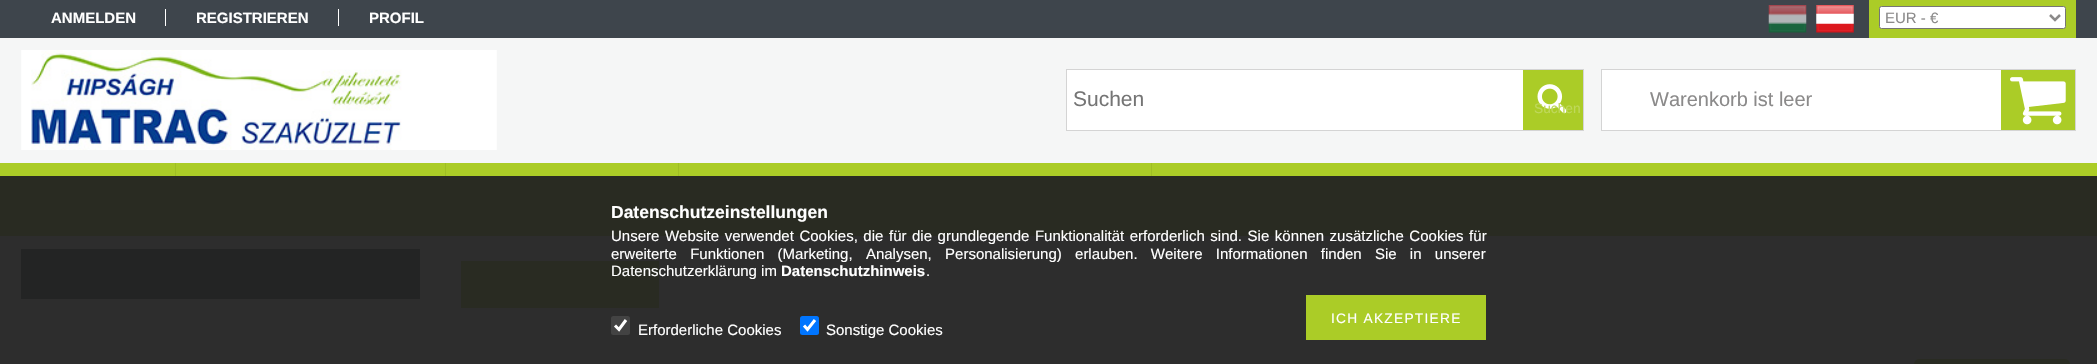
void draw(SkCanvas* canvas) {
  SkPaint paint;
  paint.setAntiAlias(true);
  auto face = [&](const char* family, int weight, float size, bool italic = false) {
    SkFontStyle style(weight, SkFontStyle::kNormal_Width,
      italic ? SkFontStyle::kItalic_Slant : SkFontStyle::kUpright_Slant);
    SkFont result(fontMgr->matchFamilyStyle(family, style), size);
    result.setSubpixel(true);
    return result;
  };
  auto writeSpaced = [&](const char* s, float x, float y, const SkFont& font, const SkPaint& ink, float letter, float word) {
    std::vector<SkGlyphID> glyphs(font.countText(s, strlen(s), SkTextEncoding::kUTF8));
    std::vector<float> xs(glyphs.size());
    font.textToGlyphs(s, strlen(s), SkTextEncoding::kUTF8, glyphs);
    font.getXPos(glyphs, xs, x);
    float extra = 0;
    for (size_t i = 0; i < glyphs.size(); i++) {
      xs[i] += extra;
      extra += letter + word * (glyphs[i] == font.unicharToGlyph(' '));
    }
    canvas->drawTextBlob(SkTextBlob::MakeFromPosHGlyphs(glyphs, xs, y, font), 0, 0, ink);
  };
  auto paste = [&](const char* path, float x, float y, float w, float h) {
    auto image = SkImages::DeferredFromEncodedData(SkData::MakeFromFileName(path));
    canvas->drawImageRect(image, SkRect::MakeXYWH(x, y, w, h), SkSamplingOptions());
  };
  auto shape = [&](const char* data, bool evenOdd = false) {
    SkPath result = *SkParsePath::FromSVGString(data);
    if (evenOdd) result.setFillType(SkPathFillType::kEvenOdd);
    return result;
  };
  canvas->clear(0xfff5f6f6);
  {
    const struct { float x, y, w, h; SkColor color; } items[] = {
      {0, 236, 2097, 128, 0xff2d2d2d},
      {0, 0, 2097, 38, 0xff3e454c},
      {165, 9, 1, 17, 0xffffffff},
      {338, 9, 1, 17, 0xffffffff},
    };
    for (auto [x, y, w, h, color] : items) {
      paint.setColor(color);
      canvas->drawRect(SkRect::MakeXYWH(x, y, w, h), paint);
    }
  }
  paste("img/1.png", 1768, 5, 39, 28);
  paste("img/2.png", 1816, 5, 38, 28);
  paint.setColor(0xffabcc27);
  canvas->drawRect(SkRect::MakeXYWH(1869, 0, 207, 38), paint);
  paint.setColor(0xffffffff);
  canvas->drawRoundRect(SkRect::MakeXYWH(1879.5f, 6.5f, 186, 22), 2, 2, paint);
  paint.setStroke(true);
  paint.setStrokeWidth(1);
  paint.setColor(0xff767676);
  canvas->drawRoundRect(SkRect::MakeXYWH(1879.5f, 6.5f, 186, 22), 2, 2, paint);
  paint.setStrokeWidth(2.5f);
  paint.setColor(0xff8b8a8a);
  canvas->drawPath(shape("M2050 15L2055 20L2060 15"), paint);
  paste("img/3.png", 21, 50, 475, 100);
  paint.setStroke(false);
  paint.setColor(0xfffdfdfd);
  canvas->drawRect(SkRect::MakeXYWH(496, 50, 1, 100), paint);
  paint.setColor(0xffffffff);
  canvas->drawRect(SkRect::MakeXYWH(1067, 70, 456, 60), paint);
  paint.setStroke(true);
  paint.setStrokeWidth(1);
  paint.setColor(0xffd4d4d4);
  canvas->drawRect(SkRect::MakeXYWH(1066.5f, 69.5f, 517, 61), paint);
  paint.setStroke(false);
  paint.setColor(0xffabcc27);
  canvas->drawRect(SkRect::MakeXYWH(1523, 70, 60, 60), paint);
  paste("img/4.png", 1537, 84, 30, 30);
  paint.setColor(0xffffffff);
  canvas->drawRect(SkRect::MakeXYWH(1602, 70, 399, 60), paint);
  paint.setStroke(true);
  paint.setColor(0xffd4d4d4);
  canvas->drawRect(SkRect::MakeXYWH(1601.5f, 69.5f, 474, 61), paint);
  paint.setStroke(false);
  paint.setColor(0xffabcc27);
  canvas->drawRect(SkRect::MakeXYWH(2001, 70, 74, 60), paint);
  paste("img/5.png", 2010, 77, 56, 48);
  {
    const struct { float x, y, w, h; SkColor color; } items[] = {
      {0, 163, 2097, 13, 0xffabcc27},
      {0, 176, 2097, 60, 0xff292b22},
      {175, 163, 1, 13, 0xff9fbe24},
      {445, 163, 1, 13, 0xff9fbe24},
      {678, 163, 1, 13, 0xff9fbe24},
      {1151, 163, 1, 13, 0xff9fbe24},
      {21, 249, 399, 50, 0xff232424},
      {461, 261, 198, 47, 0xff292b22},
    };
    for (auto [x, y, w, h, color] : items) {
      paint.setColor(color);
      canvas->drawRect(SkRect::MakeXYWH(x, y, w, h), paint);
    }
  }
  canvas->drawRoundRect(SkRect::MakeXYWH(1914, 359, 156, 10), 5, 5, paint);
  paint.setColor(0xffabcc27);
  canvas->drawRect(SkRect::MakeXYWH(1306, 295, 180, 45), paint);
  paint.setColor(0xff434343);
  canvas->drawRoundRect(SkRect::MakeXYWH(611, 316, 19, 19), 2.5f, 2.5f, paint);
  paint.setStroke(true);
  paint.setStrokeWidth(3);
  paint.setColor(0xffffffff);
  canvas->drawPath(shape("M615 325.5L619 329.5L626 320"), paint);
  paint.setStroke(false);
  paint.setColor(0xff0075ff);
  canvas->drawRoundRect(SkRect::MakeXYWH(800, 316, 19, 19), 2.5f, 2.5f, paint);
  paint.setStroke(true);
  paint.setColor(0xffffffff);
  canvas->drawPath(shape("M804 325.5L807.5 329.5L815 320"), paint);
  auto f0 = face("Liberation Sans", 700, 15);
  paint.setStroke(false);
  {
    const struct { const char* s; float x, y; } items[] = {
      {"ANMELDEN", 51, 23},
      {"REGISTRIEREN", 196, 23},
      {"PROFIL", 369, 23},
    };
    for (auto [s, x, y] : items) {
      canvas->drawString(s, x, y, f0, paint);
    }
  }
  auto f1 = face("Liberation Sans", 400, 15);
  paint.setColor(0xff8b8a8a);
  canvas->drawString("EUR - €", 1885, 23, f1, paint);
  auto f2 = face("Liberation Sans", 400, 21);
  paint.setColor(0xff757575);
  canvas->drawString("Suchen", 1073, 106, f2, paint);
  auto f3 = face("Liberation Sans", 400, 13.75f);
  paint.setColor(0xffbfd85a);
  canvas->drawString("Suchen", 1534, 113, f3, paint);
  auto f4 = face("Liberation Sans", 400, 20);
  paint.setColor(0xff8b8a8a);
  canvas->drawString("Warenkorb ist leer", 1650, 106, f4, paint);
  auto f5 = face("Liberation Sans", 700, 17.5f);
  paint.setColor(0xffffffff);
  canvas->drawString("Datenschutzeinstellungen", 611, 218, f5, paint);
  writeSpaced("Unsere Website verwendet Cookies, die für die grundlegende Funktionalität erforderlich sind. Sie können zusätzliche Cookies für", 611, 241, f1, paint, 0, 1.4f);
  writeSpaced("erweiterte Funktionen (Marketing, Analysen, Personalisierung) erlauben. Weitere Informationen finden Sie in unserer", 611, 259, f1, paint, 0, 9.1f);
  canvas->drawString("Datenschutzerklärung im", 611, 276, f1, paint);
  canvas->drawString("Datenschutzhinweis", 781, 276, f0, paint);
  canvas->drawString(".", 926, 276, f1, paint);
  writeSpaced("ICH AKZEPTIERE", 1331, 323, f3, paint, 1.25f, 0);
  canvas->drawString("Erforderliche Cookies", 638, 335, f1, paint);
  canvas->drawString("Sonstige Cookies", 826, 335, f1, paint);
}
